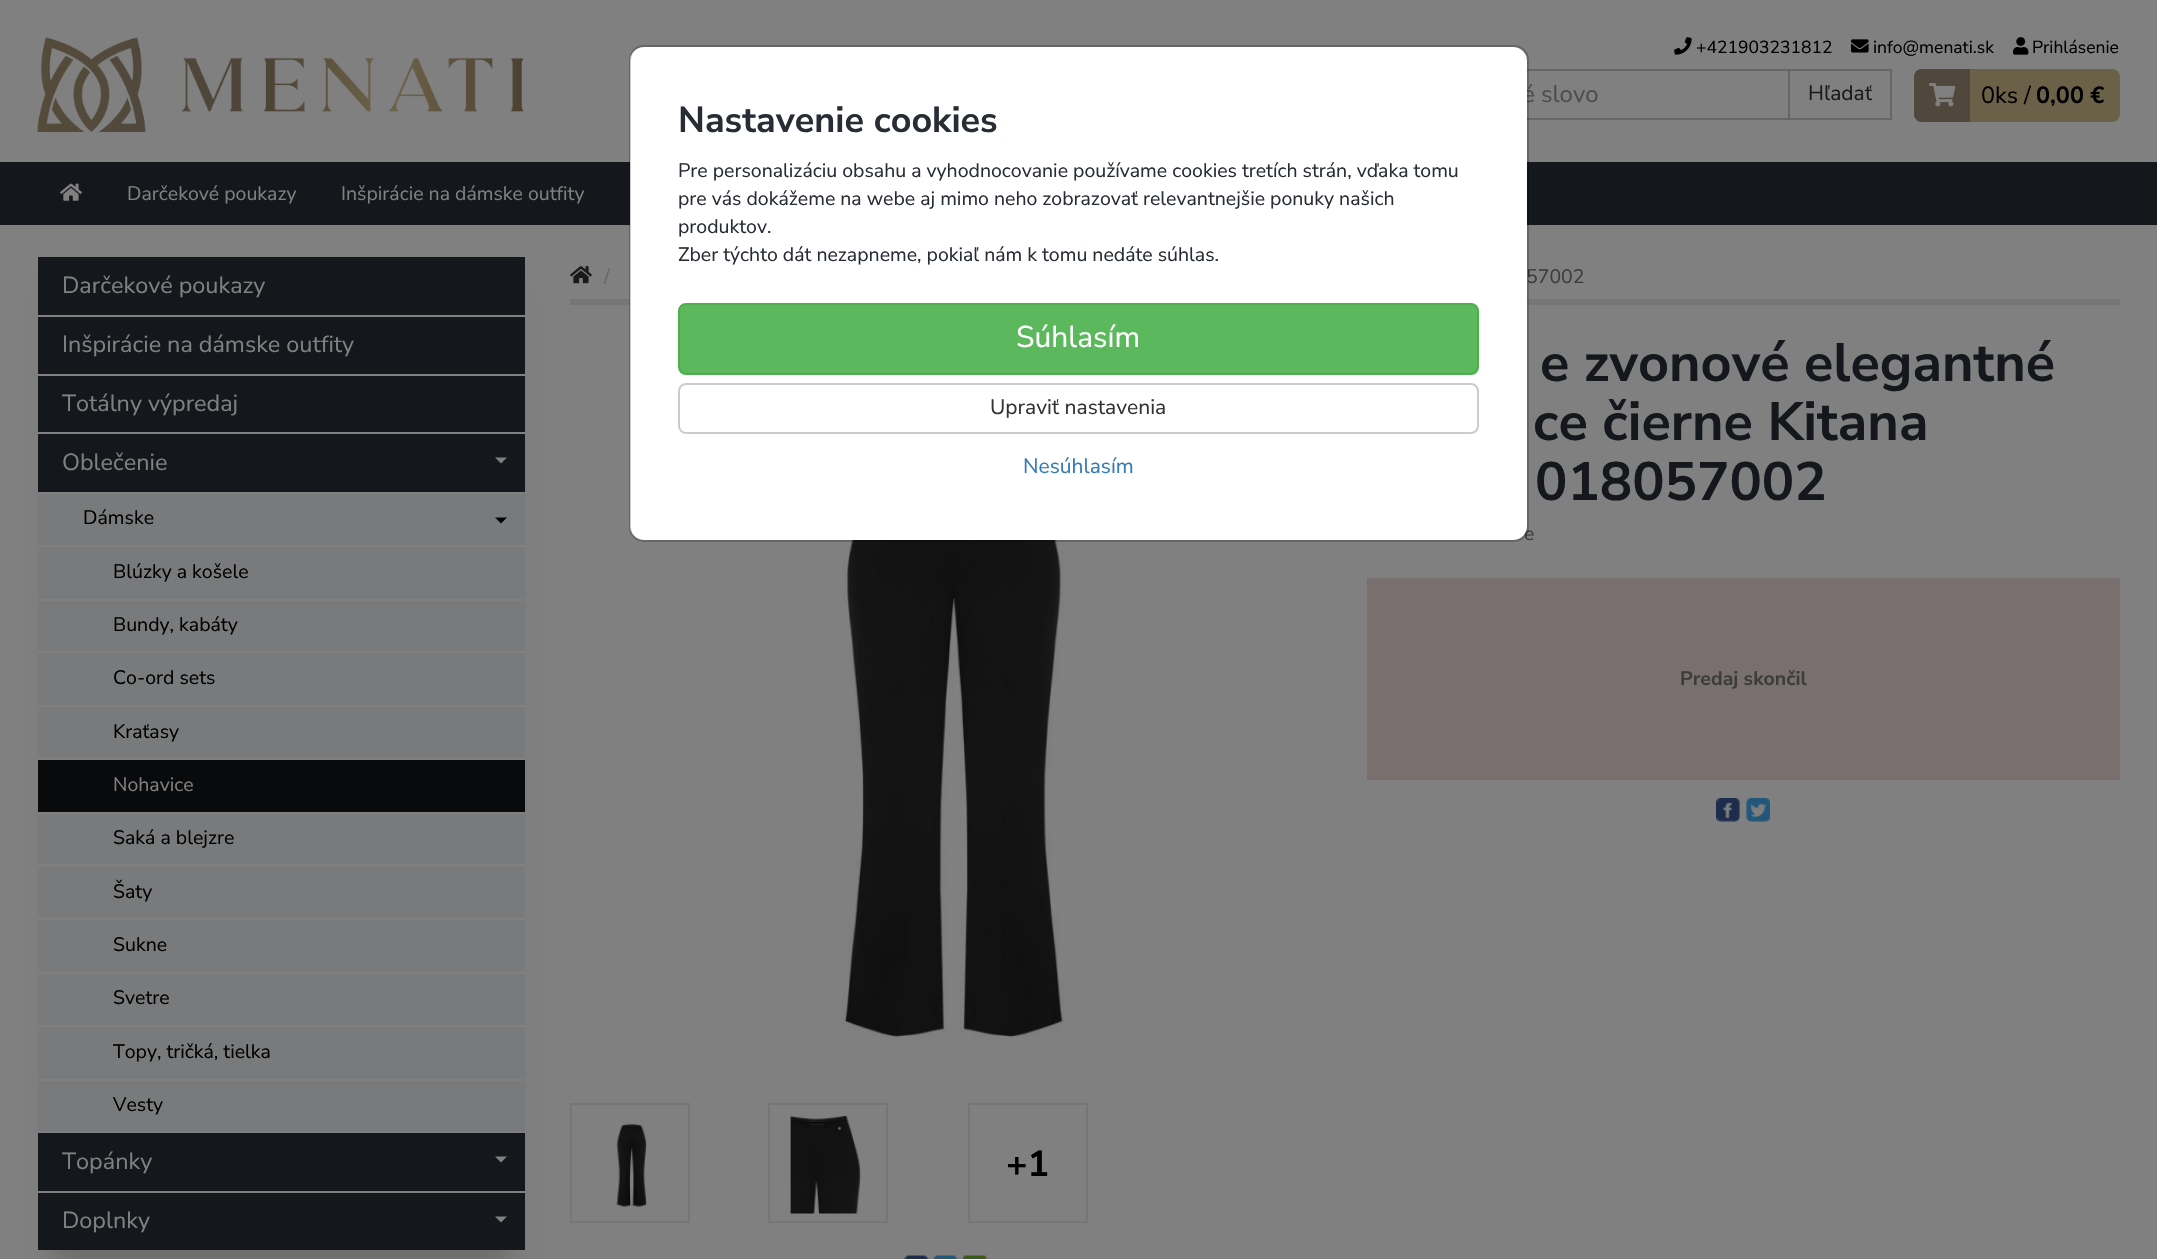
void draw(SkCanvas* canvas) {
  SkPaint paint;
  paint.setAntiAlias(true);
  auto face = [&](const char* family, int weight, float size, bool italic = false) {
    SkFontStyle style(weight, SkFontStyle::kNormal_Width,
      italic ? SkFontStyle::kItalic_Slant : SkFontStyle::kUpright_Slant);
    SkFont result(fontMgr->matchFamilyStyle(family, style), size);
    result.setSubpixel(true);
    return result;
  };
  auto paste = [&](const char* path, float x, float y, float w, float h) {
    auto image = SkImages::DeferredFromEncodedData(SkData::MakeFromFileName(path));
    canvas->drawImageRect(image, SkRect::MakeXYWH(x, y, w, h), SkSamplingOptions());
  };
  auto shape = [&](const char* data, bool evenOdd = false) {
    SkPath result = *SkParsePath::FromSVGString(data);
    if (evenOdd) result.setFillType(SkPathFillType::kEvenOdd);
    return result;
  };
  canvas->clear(0xff808080);
  paste("img/1.png", 37, 37, 487, 95);
  paste("img/2.png", 1674, 37, 18, 18);
  paste("img/3.png", 1851, 39, 18, 14);
  paste("img/4.png", 2013, 37, 16, 18);
  paint.setStroke(true);
  paint.setStrokeWidth(2);
  paint.setColor(0xff666666);
  canvas->drawRect(SkRect::MakeXYWH(1341, 70, 448, 49), paint);
  canvas->drawRect(SkRect::MakeXYWH(1789, 70, 102, 49), paint);
  paint.setStroke(false);
  paint.setColor(0xff6b6048);
  canvas->drawRoundRect(SkRect::MakeXYWH(1914, 69, 206, 53), 8, 8, paint);
  paint.setColor(0xff50483c);
  canvas->drawPath(shape("M1922 69H1970V122H1922C1917.5 122 1914 118.5 1914 114V77C1914 72.5 1917.5 69 1922 69Z"), paint);
  paste("img/5.png", 1929, 83, 27, 24);
  paint.setColor(0xff14171b);
  canvas->drawRect(SkRect::MakeXYWH(0, 162, 2157, 63), paint);
  paste("img/6.png", 60, 183, 22, 18);
  paint.setColor(0x26000000);
  paint.setMaskFilter(SkMaskFilter::MakeBlur(kNormal_SkBlurStyle, 11));
  canvas->drawRect(SkRect::MakeXYWH(53, 300, 457, 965), paint);
  paint.setMaskFilter(nullptr);
  {
    const struct { float x, y, w, h; SkColor color; } items[] = {
      {38, 257, 487, 58, 0xff14171b},
      {38, 317, 487, 57, 0xff14171b},
      {38, 315, 487, 2, 0xff808080},
      {38, 376, 487, 56, 0xff14171b},
      {38, 374, 487, 2, 0xff808080},
      {38, 434, 487, 58, 0xff14171b},
      {38, 432, 487, 2, 0xff808080},
    };
    for (auto [x, y, w, h, color] : items) {
      paint.setColor(color);
      canvas->drawRect(SkRect::MakeXYWH(x, y, w, h), paint);
    }
  }
  canvas->drawPath(shape("M495 457.5H507L501 463.5Z"), paint);
  paint.setColor(0xff797a7b);
  canvas->drawRect(SkRect::MakeXYWH(38, 494, 487, 51), paint);
  paint.setColor(0xff808080);
  canvas->drawRect(SkRect::MakeXYWH(38, 492, 487, 2), paint);
  paint.setColor(0xff000000);
  canvas->drawPath(shape("M495 517.5H507L501 523.5Z"), paint);
  {
    const struct { float x, y, w, h; SkColor color; } items[] = {
      {38, 547, 487, 52, 0xff797a7b},
      {38, 545, 487, 2, 0xff808080},
      {38, 601, 487, 50, 0xff797a7b},
      {38, 599, 487, 2, 0xff808080},
      {38, 653, 487, 52, 0xff797a7b},
      {38, 651, 487, 2, 0xff808080},
      {38, 707, 487, 51, 0xff797a7b},
      {38, 705, 487, 2, 0xff808080},
      {38, 760, 487, 52, 0xff090a0c},
      {38, 758, 487, 2, 0xff808080},
      {38, 814, 487, 50, 0xff797a7b},
      {38, 812, 487, 2, 0xff808080},
      {38, 866, 487, 52, 0xff797a7b},
      {38, 864, 487, 2, 0xff808080},
      {38, 920, 487, 52, 0xff797a7b},
      {38, 918, 487, 2, 0xff808080},
      {38, 974, 487, 51, 0xff797a7b},
      {38, 972, 487, 2, 0xff808080},
      {38, 1027, 487, 52, 0xff797a7b},
      {38, 1025, 487, 2, 0xff808080},
      {38, 1081, 487, 50, 0xff797a7b},
      {38, 1079, 487, 2, 0xff808080},
      {38, 1133, 487, 58, 0xff14171b},
      {38, 1131, 487, 2, 0xff808080},
    };
    for (auto [x, y, w, h, color] : items) {
      paint.setColor(color);
      canvas->drawRect(SkRect::MakeXYWH(x, y, w, h), paint);
    }
  }
  canvas->drawPath(shape("M495 1156.5H507L501 1162.5Z"), paint);
  paint.setColor(0xff14171b);
  canvas->drawRect(SkRect::MakeXYWH(38, 1193, 487, 57), paint);
  paint.setColor(0xff808080);
  canvas->drawRect(SkRect::MakeXYWH(38, 1191, 487, 2), paint);
  canvas->drawPath(shape("M495 1216.5H507L501 1222.5Z"), paint);
  paint.setColor(0xff767676);
  canvas->drawRect(SkRect::MakeXYWH(570, 299, 1550, 6), paint);
  paste("img/7.png", 570, 266, 22, 18);
  paint.setColor(0xff796f6f);
  canvas->drawRect(SkRect::MakeXYWH(1367, 578, 753, 202), paint);
  paste("img/8.png", 1716, 798, 24, 24);
  paste("img/9.png", 1746, 798, 24, 24);
  paste("img/10.png", 843, 540, 222, 497);
  paint.setStroke(true);
  paint.setColor(0xff767676);
  canvas->drawRect(SkRect::MakeXYWH(571, 1104, 118, 118), paint);
  paste("img/11.png", 616, 1123, 31, 84);
  canvas->drawRect(SkRect::MakeXYWH(769, 1104, 118, 118), paint);
  paste("img/12.png", 790, 1115, 71, 99);
  canvas->drawRect(SkRect::MakeXYWH(969, 1104, 118, 118), paint);
  paste("img/13.png", 904, 1255, 25, 4);
  paste("img/14.png", 933, 1255, 24, 4);
  paste("img/15.png", 963, 1255, 24, 4);
  auto f0 = face("Nunito Sans", 400, 17.5f);
  paint.setStroke(false);
  paint.setColor(0xff000000);
  {
    const struct { const char* s; float x, y; } items[] = {
      {"+421903231812", 1696, 53},
      {"info@menati.sk", 1873, 53},
      {"Prihlásenie", 2032, 53},
    };
    for (auto [s, x, y] : items) {
      canvas->drawString(s, x, y, f0, paint);
    }
  }
  auto f1 = face("Nunito Sans", 400, 24);
  paint.setColor(0xff4d4d4d);
  canvas->drawString("é slovo", 1522, 102, f1, paint);
  auto f2 = face("Nunito Sans", 400, 21);
  paint.setColor(0xff1a1a1a);
  canvas->drawString("Hľadať", 1808, 100, f2, paint);
  auto f3 = face("Nunito Sans", 400, 23.4f);
  paint.setColor(0xff000000);
  canvas->drawString("0ks /", 1981, 103, f3, paint);
  auto f4 = face("Nunito Sans", 700, 23.4f);
  canvas->drawString("0,00 €", 2036, 103, f4, paint);
  auto f5 = face("Nunito Sans", 400, 19.5f);
  paint.setColor(0xff808080);
  canvas->drawString("Darčekové poukazy", 127, 200, f5, paint);
  canvas->drawString("Inšpirácie na dámske outfity", 341, 200, f5, paint);
  {
    const struct { const char* s; float x, y; } items[] = {
      {"Darčekové poukazy", 62, 293},
      {"Inšpirácie na dámske outfity", 62, 352},
      {"Totálny výpredaj", 62, 411},
      {"Oblečenie", 62, 470},
    };
    for (auto [s, x, y] : items) {
      canvas->drawString(s, x, y, f3, paint);
    }
  }
  paint.setColor(0xff000000);
  {
    const struct { const char* s; float x, y; } items[] = {
      {"Dámske", 83, 524},
      {"Blúzky a košele", 113, 578},
      {"Bundy, kabáty", 113, 631},
      {"Co-ord sets", 113, 684},
      {"Kraťasy", 113, 738},
    };
    for (auto [s, x, y] : items) {
      canvas->drawString(s, x, y, f5, paint);
    }
  }
  paint.setColor(0xff808080);
  canvas->drawString("Nohavice", 113, 791, f5, paint);
  paint.setColor(0xff000000);
  {
    const struct { const char* s; float x, y; } items[] = {
      {"Saká a blejzre", 113, 844},
      {"Šaty", 113, 898},
      {"Sukne", 113, 951},
      {"Svetre", 113, 1004},
      {"Topy, tričká, tielka", 113, 1058},
      {"Vesty", 113, 1111},
    };
    for (auto [s, x, y] : items) {
      canvas->drawString(s, x, y, f5, paint);
    }
  }
  paint.setColor(0xff808080);
  canvas->drawString("Topánky", 62, 1169, f3, paint);
  canvas->drawString("Doplnky", 62, 1228, f3, paint);
  paint.setColor(0xff666666);
  canvas->drawString("/", 604, 283, f5, paint);
  paint.setColor(0xff3c3c3c);
  canvas->drawString("57002", 1526, 283, f5, paint);
  auto f6 = face("Nunito Sans", 700, 54);
  paint.setColor(0xff14171b);
  {
    const struct { const char* s; float x, y; } items[] = {
      {"e zvonové elegantné", 1540, 381},
      {"ce čierne Kitana", 1533, 440},
      {"018057002", 1535, 500},
    };
    for (auto [s, x, y] : items) {
      canvas->drawString(s, x, y, f6, paint);
    }
  }
  paint.setColor(0xff3c3c3c);
  canvas->drawString("e", 1524, 540, f5, paint);
  paint.setColor(0xffffffff);
  canvas->drawRoundRect(SkRect::MakeXYWH(630, 47, 897, 493), 14, 14, paint);
  paint.setStroke(true);
  paint.setColor(0x33000000);
  canvas->drawRoundRect(SkRect::MakeXYWH(630, 46, 898, 495), 14, 14, paint);
  paint.setStroke(false);
  paint.setColor(0xff337ab7);
  canvas->drawString("Nesúhlasím", 1023, 473, f2, paint);
  paint.setStroke(true);
  paint.setColor(0xffcccccc);
  canvas->drawRoundRect(SkRect::MakeXYWH(679, 384, 799, 49), 7, 7, paint);
  paint.setStroke(false);
  paint.setColor(0xff333333);
  canvas->drawString("Upraviť nastavenia", 990, 414, f2, paint);
  paint.setColor(0xff5cb85c);
  canvas->drawRoundRect(SkRect::MakeXYWH(679, 304, 799, 70), 7, 7, paint);
  paint.setStroke(true);
  paint.setColor(0xff4cae4c);
  canvas->drawRoundRect(SkRect::MakeXYWH(679, 304, 799, 70), 7, 7, paint);
  auto f7 = face("Nunito Sans", 400, 30);
  paint.setStroke(false);
  paint.setColor(0xffffffff);
  canvas->drawString("Súhlasím", 1016, 347, f7, paint);
  paint.setColor(0xff282d35);
  {
    const struct { const char* s; float x, y; } items[] = {
      {"Zber týchto dát nezapneme, pokiaľ nám k tomu nedáte súhlas.", 678, 261},
      {"produktov.", 678, 233},
      {"pre vás dokážeme na webe aj mimo neho zobrazovať relevantnejšie ponuky našich", 678, 205},
      {"Pre personalizáciu obsahu a vyhodnocovanie používame cookies tretích strán, vďaka tomu", 678, 177},
    };
    for (auto [s, x, y] : items) {
      canvas->drawString(s, x, y, f5, paint);
    }
  }
  auto f8 = face("Nunito Sans", 700, 36);
  canvas->drawString("Nastavenie cookies", 678, 132, f8, paint);
  auto f9 = face("Nunito Sans", 700, 19.5f);
  paint.setColor(0xff3c3c3c);
  canvas->drawString("Predaj skončil", 1680, 685, f9, paint);
  paint.setColor(0xff000000);
  canvas->drawString("+1", 1006, 1176, f8, paint);
}
